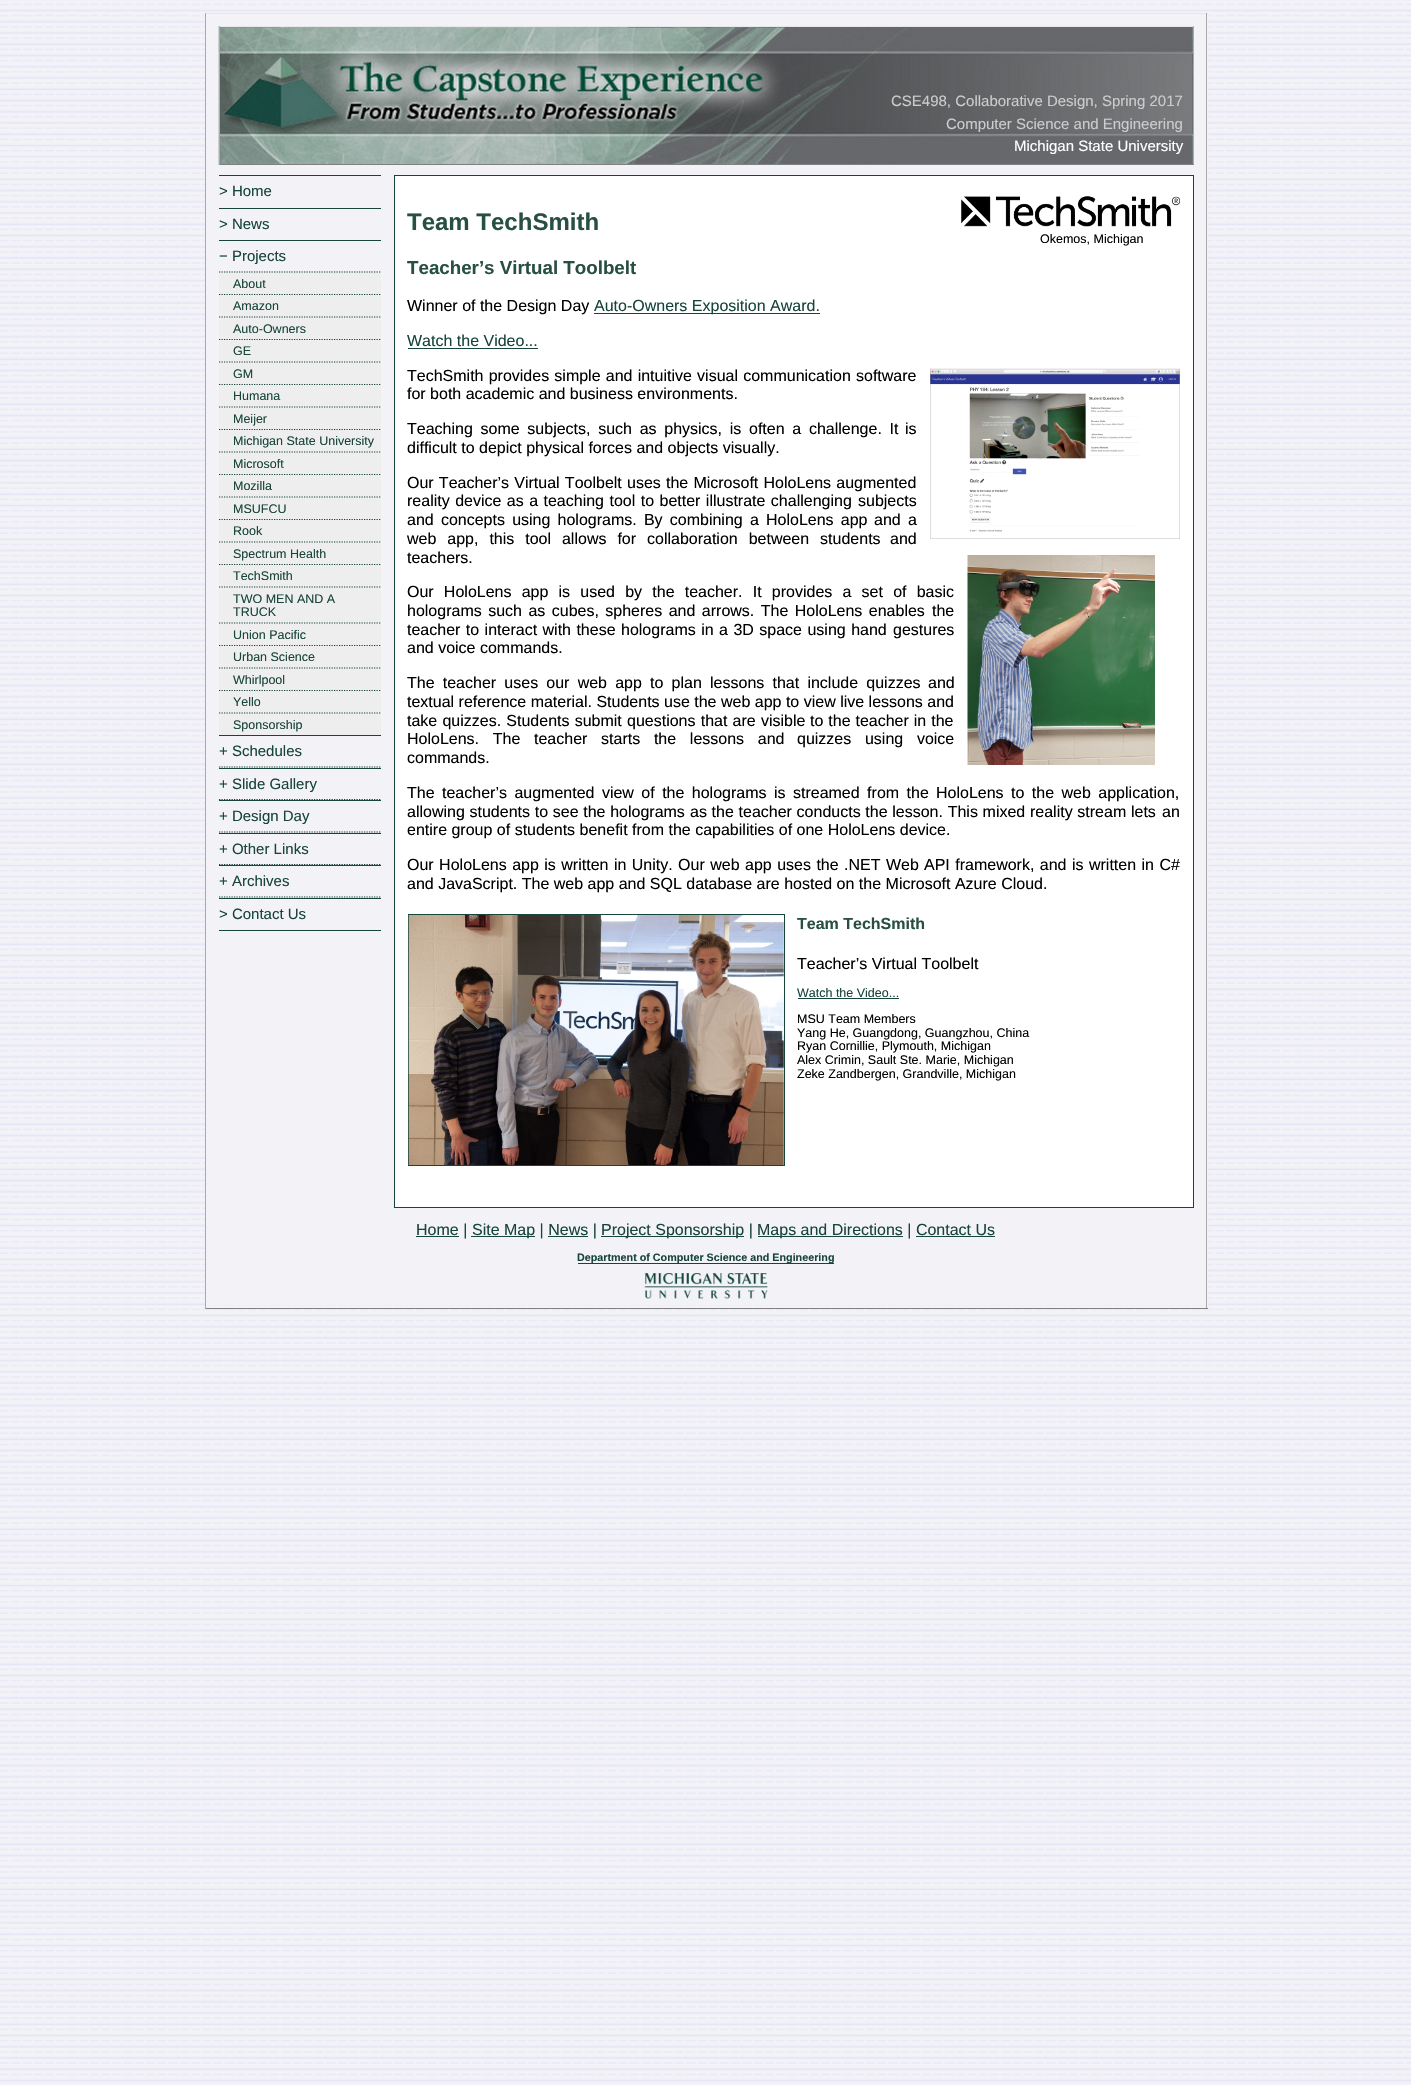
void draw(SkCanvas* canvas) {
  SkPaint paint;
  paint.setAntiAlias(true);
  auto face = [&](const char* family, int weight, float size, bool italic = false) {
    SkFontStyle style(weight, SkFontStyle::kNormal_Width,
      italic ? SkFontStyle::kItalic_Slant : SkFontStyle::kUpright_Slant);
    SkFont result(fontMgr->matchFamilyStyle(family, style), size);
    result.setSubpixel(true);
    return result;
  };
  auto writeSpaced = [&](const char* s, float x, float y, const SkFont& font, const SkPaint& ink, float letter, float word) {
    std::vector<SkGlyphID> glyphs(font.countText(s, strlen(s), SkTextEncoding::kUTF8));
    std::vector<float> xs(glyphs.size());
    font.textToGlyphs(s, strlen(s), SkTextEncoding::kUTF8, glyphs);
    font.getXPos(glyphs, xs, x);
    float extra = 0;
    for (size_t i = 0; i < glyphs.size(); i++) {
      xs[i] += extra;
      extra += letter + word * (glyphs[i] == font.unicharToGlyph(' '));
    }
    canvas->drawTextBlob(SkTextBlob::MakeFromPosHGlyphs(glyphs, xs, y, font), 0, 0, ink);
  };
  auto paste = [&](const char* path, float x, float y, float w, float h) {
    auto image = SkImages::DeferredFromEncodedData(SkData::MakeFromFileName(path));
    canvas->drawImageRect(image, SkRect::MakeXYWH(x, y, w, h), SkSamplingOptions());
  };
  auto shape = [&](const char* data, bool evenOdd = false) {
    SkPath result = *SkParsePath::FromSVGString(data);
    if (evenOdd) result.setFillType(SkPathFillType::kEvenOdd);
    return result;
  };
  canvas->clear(0xffffffff);
  paste("img/1.png", 0, 0, 1411, 2085);
  {
    const struct { float x, y, w, h; SkColor color; } items[] = {
      {206, 15, 1002, 1290, 0xfff2f2f7},
      {205, 13, 1003, 1, 0xffe6e6eb},
      {1206, 13, 1, 1296, 0xffa9a9a9},
      {205, 1308, 1003, 1, 0xff808080},
      {205, 13, 1, 1296, 0xffa9a9a9},
    };
    for (auto [x, y, w, h, color] : items) {
      paint.setColor(color);
      canvas->drawRect(SkRect::MakeXYWH(x, y, w, h), paint);
    }
  }
  paste("img/2.png", 218, 26, 975, 139);
  {
    const struct { float x, y, w, h; SkColor color; } items[] = {
      {219, 26, 975, 1, 0xffe6e6eb},
      {1193, 26, 1, 139, 0xffa9a9a9},
      {219, 164, 975, 1, 0xff808080},
      {219, 26, 1, 139, 0xffa9a9a9},
      {219, 175, 162, 1, 0xff18453b},
      {219, 208, 162, 1, 0xff18453b},
      {219, 240, 162, 1, 0xff18453b},
      {219, 735, 162, 1, 0xff18453b},
      {219, 271, 162, 464, 0xffeeeeee},
    };
    for (auto [x, y, w, h, color] : items) {
      paint.setColor(color);
      canvas->drawRect(SkRect::MakeXYWH(x, y, w, h), paint);
    }
  }
  paint.setStroke(true);
  paint.setStrokeWidth(1.2f);
  paint.setColor(0xff18453b);
  paint.setPathEffect(SkDashPathEffect::Make({{1.25f, 1.25f}}, 0));
  canvas->drawPath(shape("M219 272H381"), paint);
  paint.setPathEffect(nullptr);
  paint.setPathEffect(SkDashPathEffect::Make({{1.25f, 1.25f}}, 0));
  canvas->drawPath(shape("M219 294.5H381"), paint);
  paint.setPathEffect(nullptr);
  paint.setPathEffect(SkDashPathEffect::Make({{1.25f, 1.25f}}, 0));
  canvas->drawPath(shape("M219 317H381"), paint);
  paint.setPathEffect(nullptr);
  paint.setPathEffect(SkDashPathEffect::Make({{1.25f, 1.25f}}, 0));
  canvas->drawPath(shape("M219 339.5H381"), paint);
  paint.setPathEffect(nullptr);
  paint.setPathEffect(SkDashPathEffect::Make({{1.25f, 1.25f}}, 0));
  canvas->drawPath(shape("M219 362H381"), paint);
  paint.setPathEffect(nullptr);
  paint.setPathEffect(SkDashPathEffect::Make({{1.25f, 1.25f}}, 0));
  canvas->drawPath(shape("M219 384.5H381"), paint);
  paint.setPathEffect(nullptr);
  paint.setPathEffect(SkDashPathEffect::Make({{1.25f, 1.25f}}, 0));
  canvas->drawPath(shape("M219 407H381"), paint);
  paint.setPathEffect(nullptr);
  paint.setPathEffect(SkDashPathEffect::Make({{1.25f, 1.25f}}, 0));
  canvas->drawPath(shape("M219 429.5H381"), paint);
  paint.setPathEffect(nullptr);
  paint.setPathEffect(SkDashPathEffect::Make({{1.25f, 1.25f}}, 0));
  canvas->drawPath(shape("M219 452H381"), paint);
  paint.setPathEffect(nullptr);
  paint.setPathEffect(SkDashPathEffect::Make({{1.25f, 1.25f}}, 0));
  canvas->drawPath(shape("M219 474.5H381"), paint);
  paint.setPathEffect(nullptr);
  paint.setPathEffect(SkDashPathEffect::Make({{1.25f, 1.25f}}, 0));
  canvas->drawPath(shape("M219 497H381"), paint);
  paint.setPathEffect(nullptr);
  paint.setPathEffect(SkDashPathEffect::Make({{1.25f, 1.25f}}, 0));
  canvas->drawPath(shape("M219 519.5H381"), paint);
  paint.setPathEffect(nullptr);
  paint.setPathEffect(SkDashPathEffect::Make({{1.25f, 1.25f}}, 0));
  canvas->drawPath(shape("M219 542H381"), paint);
  paint.setPathEffect(nullptr);
  paint.setPathEffect(SkDashPathEffect::Make({{1.25f, 1.25f}}, 0));
  canvas->drawPath(shape("M219 564.5H381"), paint);
  paint.setPathEffect(nullptr);
  paint.setPathEffect(SkDashPathEffect::Make({{1.25f, 1.25f}}, 0));
  canvas->drawPath(shape("M219 587H381"), paint);
  paint.setPathEffect(nullptr);
  paint.setPathEffect(SkDashPathEffect::Make({{1.25f, 1.25f}}, 0));
  canvas->drawPath(shape("M219 623H381"), paint);
  paint.setPathEffect(nullptr);
  paint.setPathEffect(SkDashPathEffect::Make({{1.25f, 1.25f}}, 0));
  canvas->drawPath(shape("M219 645.5H381"), paint);
  paint.setPathEffect(nullptr);
  paint.setPathEffect(SkDashPathEffect::Make({{1.25f, 1.25f}}, 0));
  canvas->drawPath(shape("M219 668H381"), paint);
  paint.setPathEffect(nullptr);
  paint.setPathEffect(SkDashPathEffect::Make({{1.25f, 1.25f}}, 0));
  canvas->drawPath(shape("M219 690.5H381"), paint);
  paint.setPathEffect(nullptr);
  paint.setPathEffect(SkDashPathEffect::Make({{1.25f, 1.25f}}, 0));
  canvas->drawPath(shape("M219 713H381"), paint);
  paint.setPathEffect(nullptr);
  paint.setStroke(false);
  canvas->drawRect(SkRect::MakeXYWH(219, 768, 162, 1), paint);
  paint.setColor(0xffeeeeee);
  canvas->drawRect(SkRect::MakeXYWH(219, 766, 162, 2), paint);
  paint.setStroke(true);
  paint.setColor(0xff18453b);
  paint.setPathEffect(SkDashPathEffect::Make({{1.25f, 1.25f}}, 0));
  canvas->drawPath(shape("M219 767H381"), paint);
  paint.setPathEffect(nullptr);
  paint.setStroke(false);
  canvas->drawRect(SkRect::MakeXYWH(219, 800, 162, 1), paint);
  paint.setColor(0xffeeeeee);
  canvas->drawRect(SkRect::MakeXYWH(219, 799, 162, 1), paint);
  canvas->save();
  canvas->clipRect(SkRect::MakeXYWH(219, 769, 162, 31));
  paint.setStroke(true);
  paint.setColor(0xff18453b);
  paint.setPathEffect(SkDashPathEffect::Make({{1.25f, 1.25f}}, 0));
  canvas->drawPath(shape("M219 799.5H381"), paint);
  paint.setPathEffect(nullptr);
  canvas->restore();
  paint.setStroke(false);
  canvas->drawRect(SkRect::MakeXYWH(219, 833, 162, 1), paint);
  paint.setColor(0xffeeeeee);
  canvas->drawRect(SkRect::MakeXYWH(219, 831, 162, 2), paint);
  paint.setStroke(true);
  paint.setColor(0xff18453b);
  paint.setPathEffect(SkDashPathEffect::Make({{1.25f, 1.25f}}, 0));
  canvas->drawPath(shape("M219 832H381"), paint);
  paint.setPathEffect(nullptr);
  paint.setStroke(false);
  canvas->drawRect(SkRect::MakeXYWH(219, 865, 162, 1), paint);
  paint.setColor(0xffeeeeee);
  canvas->drawRect(SkRect::MakeXYWH(219, 864, 162, 1), paint);
  canvas->save();
  canvas->clipRect(SkRect::MakeXYWH(219, 834, 162, 31));
  paint.setStroke(true);
  paint.setColor(0xff18453b);
  paint.setPathEffect(SkDashPathEffect::Make({{1.25f, 1.25f}}, 0));
  canvas->drawPath(shape("M219 864.5H381"), paint);
  paint.setPathEffect(nullptr);
  canvas->restore();
  paint.setStroke(false);
  canvas->drawRect(SkRect::MakeXYWH(219, 898, 162, 1), paint);
  paint.setColor(0xffeeeeee);
  canvas->drawRect(SkRect::MakeXYWH(219, 896, 162, 2), paint);
  paint.setStroke(true);
  paint.setColor(0xff18453b);
  paint.setPathEffect(SkDashPathEffect::Make({{1.25f, 1.25f}}, 0));
  canvas->drawPath(shape("M219 897H381"), paint);
  paint.setPathEffect(nullptr);
  paint.setStroke(false);
  canvas->drawRect(SkRect::MakeXYWH(219, 930, 162, 1), paint);
  paint.setColor(0xffffffff);
  canvas->drawRect(SkRect::MakeXYWH(394.5f, 175.5f, 799, 1032), paint);
  paint.setStroke(true);
  paint.setStrokeWidth(1);
  paint.setColor(0xff18453b);
  canvas->drawRect(SkRect::MakeXYWH(394.5f, 175.5f, 799, 1032), paint);
  paste("img/3.png", 961, 196, 219, 31);
  paint.setStroke(false);
  canvas->drawRect(SkRect::MakeXYWH(594, 313, 226, 1), paint);
  canvas->drawRect(SkRect::MakeXYWH(408, 348, 130, 1), paint);
  paste("img/4.png", 930, 368, 250, 171);
  paste("img/5.png", 967, 555, 188, 210);
  paint.setStroke(true);
  canvas->drawRect(SkRect::MakeXYWH(408.5f, 914.5f, 376, 251), paint);
  paste("img/6.png", 408, 915, 376, 250);
  paint.setStroke(false);
  {
    const struct { float x, y, w, h; SkColor color; } items[] = {
      {798, 998, 101, 1, 0xff18453b},
      {416, 1236, 43, 1, 0xff18453b},
      {471, 1236, 64, 1, 0xff18453b},
      {601, 1236, 143, 1, 0xff18453b},
      {758, 1236, 145, 1, 0xff18453b},
      {548, 1236, 40, 1, 0xff18453b},
      {916, 1236, 79, 1, 0xff18453b},
      {578, 1263, 256, 1, 0xff18453b},
    };
    for (auto [x, y, w, h, color] : items) {
      paint.setColor(color);
      canvas->drawRect(SkRect::MakeXYWH(x, y, w, h), paint);
    }
  }
  paste("img/7.png", 644, 1273, 124, 26);
  auto f0 = face("Liberation Sans", 400, 15);
  paint.setColor(0xffcccccc);
  canvas->drawString("CSE498, Collaborative Design, Spring 2017", 891, 106, f0, paint);
  canvas->drawString("Computer Science and Engineering", 946, 129, f0, paint);
  paint.setColor(0xffffffff);
  canvas->drawString("Michigan State University", 1014, 151, f0, paint);
  paint.setColor(0xff18453b);
  {
    const struct { const char* s; float x, y; } items[] = {
      {"> Home", 219, 196},
      {"> News", 219, 229},
      {"− Projects", 219, 261},
    };
    for (auto [s, x, y] : items) {
      canvas->drawString(s, x, y, f0, paint);
    }
  }
  auto f1 = face("Liberation Sans", 400, 12.5f);
  {
    const struct { const char* s; float x, y; } items[] = {
      {"About", 233, 288},
      {"Amazon", 233, 310},
      {"Auto-Owners", 233, 333},
      {"GE", 233, 355},
      {"GM", 233, 378},
      {"Humana", 233, 400},
      {"Meijer", 233, 423},
      {"Michigan State University", 233, 445},
      {"Microsoft", 233, 468},
      {"Mozilla", 233, 490},
      {"MSUFCU", 233, 513},
      {"Rook", 233, 535},
      {"Spectrum Health", 233, 558},
      {"TechSmith", 233, 580},
      {"TWO MEN AND A", 233, 603},
      {"TRUCK", 233, 616},
      {"Union Pacific", 233, 639},
      {"Urban Science", 233, 661},
      {"Whirlpool", 233, 684},
      {"Yello", 233, 706},
      {"Sponsorship", 233, 729},
    };
    for (auto [s, x, y] : items) {
      canvas->drawString(s, x, y, f1, paint);
    }
  }
  {
    const struct { const char* s; float x, y; } items[] = {
      {"+ Schedules", 219, 756},
      {"+ Slide Gallery", 219, 789},
      {"+ Design Day", 219, 821},
      {"+ Other Links", 219, 854},
      {"+ Archives", 219, 886},
      {"> Contact Us", 219, 919},
    };
    for (auto [s, x, y] : items) {
      canvas->drawString(s, x, y, f0, paint);
    }
  }
  auto f2 = face("Liberation Sans", 700, 24);
  paint.setColor(0xff284f44);
  canvas->drawString("Team TechSmith", 407, 230, f2, paint);
  paint.setColor(0xff000000);
  canvas->drawString("Okemos, Michigan", 1040, 243, f1, paint);
  auto f3 = face("Liberation Sans", 700, 18.75f);
  paint.setColor(0xff284f44);
  canvas->drawString("Teacher’s Virtual Toolbelt", 407, 274, f3, paint);
  auto f4 = face("Liberation Sans", 400, 16);
  paint.setColor(0xff000000);
  canvas->drawString("Winner of the Design Day", 407, 311, f4, paint);
  paint.setColor(0xff18453b);
  canvas->drawString("Auto-Owners Exposition Award.", 594, 311, f4, paint);
  canvas->drawString("Watch the Video...", 407, 346, f4, paint);
  paint.setColor(0xff000000);
  writeSpaced("TechSmith provides simple and intuitive visual communication software", 407, 381, f4, paint, 0, 0.75f);
  canvas->drawString("for both academic and business environments.", 407, 399, f4, paint);
  writeSpaced("Teaching some subjects, such as physics, is often a challenge. It", 407, 434, f4, paint, 0, 3.25f);
  canvas->drawString("is", 905, 434, f4, paint);
  canvas->drawString("difficult to depict physical forces and objects visually.", 407, 453, f4, paint);
  writeSpaced("Our Teacher’s Virtual Toolbelt uses the Microsoft HoloLens augmented", 407, 488, f4, paint, 0, 0.75f);
  writeSpaced("reality device as a teaching tool to better illustrate challenging", 407, 506, f4, paint, 0, 1);
  canvas->drawString("subjects", 858, 506, f4, paint);
  writeSpaced("and concepts using holograms. By combining a HoloLens app", 407, 525, f4, paint, 0, 2.75f);
  writeSpaced("and a", 874, 525, f4, paint, 0, 2.75f);
  writeSpaced("web app, this tool allows for collaboration between students", 407, 544, f4, paint, 0, 6.5f);
  canvas->drawString("and", 890, 544, f4, paint);
  canvas->drawString("teachers.", 407, 563, f4, paint);
  writeSpaced("Our HoloLens app is used by the teacher. It provides a set of basic", 407, 597, f4, paint, 0, 5.75f);
  writeSpaced("holograms such as cubes, spheres and arrows. The HoloLens enables", 407, 616, f4, paint, 0, 2);
  canvas->drawString("the", 932, 616, f4, paint);
  writeSpaced("teacher to interact with these holograms in a 3D space using hand", 407, 635, f4, paint, 0, 1);
  canvas->drawString("gestures", 893, 635, f4, paint);
  canvas->drawString("and voice commands.", 407, 653, f4, paint);
  writeSpaced("The teacher uses our web app to plan lessons that include quizzes", 407, 688, f4, paint, 0, 3.75f);
  canvas->drawString("and", 928, 688, f4, paint);
  canvas->drawString("textual reference material. Students use the web app to view live lessons and", 407, 707, f4, paint);
  writeSpaced("take quizzes. Students submit questions that are visible", 407, 726, f4, paint, 0, 0.75f);
  writeSpaced("to the teacher in the", 810, 726, f4, paint, 0, 0.5f);
  writeSpaced("HoloLens. The teacher starts the lessons and", 407, 744, f4, paint, 0, 9.25f);
  writeSpaced("quizzes using voice", 797, 744, f4, paint, 0, 9.25f);
  canvas->drawString("commands.", 407, 763, f4, paint);
  writeSpaced("The teacher’s augmented view of the holograms is streamed from the", 407, 798, f4, paint, 0, 3);
  writeSpaced("HoloLens to the web application,", 936, 798, f4, paint, 0, 3);
  writeSpaced("allowing students to see the holograms", 407, 817, f4, paint, 0, 0.25f);
  writeSpaced("as the teacher conducts the lesson. This mixed reality stream lets", 690, 817, f4, paint, 0, 0.25f);
  canvas->drawString("an", 1162, 817, f4, paint);
  canvas->drawString("entire group of students benefit from the capabilities of one HoloLens device.", 407, 835, f4, paint);
  writeSpaced("Our HoloLens app is written in Unity. Our web app uses the .NET Web", 407, 870, f4, paint, 0, 1);
  writeSpaced("API framework, and is written in C#", 924, 870, f4, paint, 0, 1);
  canvas->drawString("and JavaScript. The web app and SQL database are hosted on the Microsoft Azure Cloud.", 407, 889, f4, paint);
  auto f5 = face("Liberation Sans", 700, 16);
  paint.setColor(0xff284f44);
  canvas->drawString("Team TechSmith", 797, 929, f5, paint);
  paint.setColor(0xff000000);
  canvas->drawString("Teacher’s Virtual Toolbelt", 797, 969, f4, paint);
  paint.setColor(0xff18453b);
  canvas->drawString("Watch the Video...", 797, 997, f1, paint);
  paint.setColor(0xff000000);
  {
    const struct { const char* s; float x, y; } items[] = {
      {"MSU Team Members", 797, 1023},
      {"Yang He, Guangdong, Guangzhou, China", 797, 1037},
      {"Ryan Cornillie, Plymouth, Michigan", 797, 1050},
      {"Alex Crimin, Sault Ste. Marie, Michigan", 797, 1064},
      {"Zeke Zandbergen, Grandville, Michigan", 797, 1078},
    };
    for (auto [s, x, y] : items) {
      canvas->drawString(s, x, y, f1, paint);
    }
  }
  paint.setColor(0xff18453b);
  {
    const struct { const char* s; float x, y; } items[] = {
      {"Home |", 416, 1235},
      {"Site Map | News |", 472, 1235},
      {"Project Sponsorship |", 601, 1235},
      {"Maps and Directions | Contact Us", 757, 1235},
    };
    for (auto [s, x, y] : items) {
      canvas->drawString(s, x, y, f4, paint);
    }
  }
  auto f6 = face("Liberation Sans", 700, 10.75f);
  canvas->drawString("Department of Computer Science and Engineering", 577, 1261, f6, paint);
}
